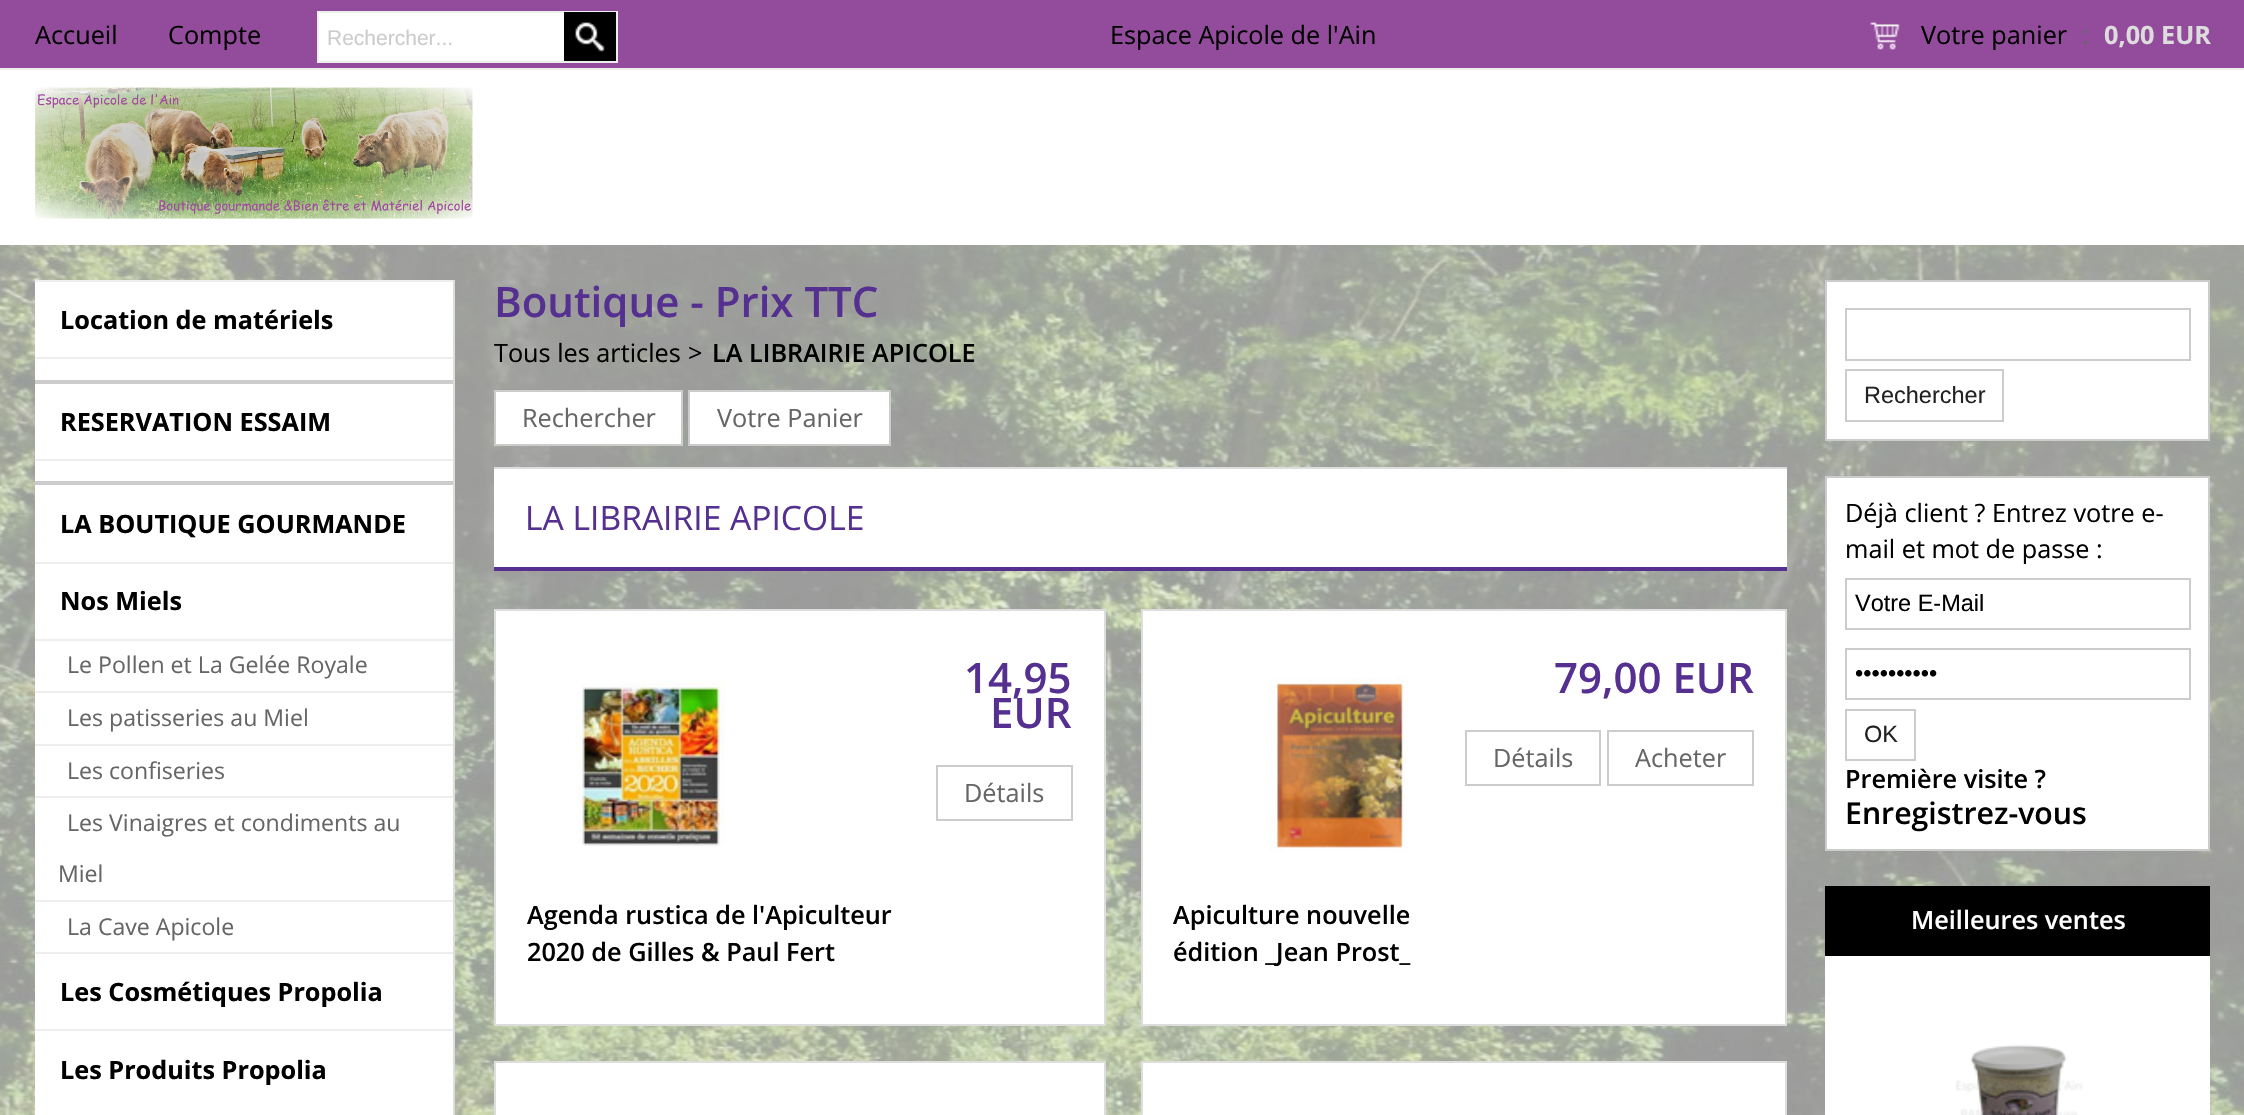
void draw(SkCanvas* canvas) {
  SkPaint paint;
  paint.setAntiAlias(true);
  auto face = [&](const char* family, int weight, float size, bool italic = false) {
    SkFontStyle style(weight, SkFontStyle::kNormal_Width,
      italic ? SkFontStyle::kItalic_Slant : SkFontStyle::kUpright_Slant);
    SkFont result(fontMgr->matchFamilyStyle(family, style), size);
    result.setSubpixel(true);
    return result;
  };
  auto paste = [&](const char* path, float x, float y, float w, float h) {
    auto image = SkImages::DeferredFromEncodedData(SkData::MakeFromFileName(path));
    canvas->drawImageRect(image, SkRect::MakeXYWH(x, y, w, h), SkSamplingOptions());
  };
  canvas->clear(0xffffffff);
  {
    const struct { float x, y, w, h; SkColor color; } items[] = {
      {0, 0, 2244, 68, 0xff934b9c},
      {0, 68, 2244, 2, 0xffeeeeee},
      {319, 13, 245, 48, 0xffffffff},
    };
    for (auto [x, y, w, h, color] : items) {
      paint.setColor(color);
      canvas->drawRect(SkRect::MakeXYWH(x, y, w, h), paint);
    }
  }
  paint.setStroke(true);
  paint.setStrokeWidth(2);
  paint.setColor(0xffeeeeee);
  canvas->drawRect(SkRect::MakeXYWH(318, 12, 299, 50), paint);
  paint.setStroke(false);
  paint.setColor(0xff000000);
  canvas->drawRect(SkRect::MakeXYWH(564, 12, 52, 49), paint);
  paste("img/1.png", 575, 22, 30, 30);
  paste("img/2.png", 1870, 22, 30, 28);
  paste("img/3.png", 35, 87, 438, 132);
  paste("img/4.png", 0, 245, 2244, 870);
  {
    const struct { float x, y, w, h; SkColor color; } items[] = {
      {35, 282, 418, 833, 0xffffffff},
      {453, 280, 2, 835, 0xffdddddd},
      {35, 280, 418, 2, 0xffeeeeee},
      {35, 357, 418, 2, 0xffeeeeee},
      {35, 380, 418, 4, 0xffcccccc},
      {35, 459, 418, 2, 0xffeeeeee},
      {35, 481, 418, 4, 0xffcccccc},
      {35, 562, 418, 2, 0xffeeeeee},
      {35, 639, 418, 2, 0xffeeeeee},
      {35, 691, 418, 2, 0xffeeeeee},
      {35, 744, 418, 2, 0xffeeeeee},
      {35, 796, 418, 2, 0xffeeeeee},
      {35, 900, 418, 2, 0xffeeeeee},
      {35, 952, 418, 2, 0xffeeeeee},
      {35, 1029, 418, 2, 0xffeeeeee},
    };
    for (auto [x, y, w, h, color] : items) {
      paint.setColor(color);
      canvas->drawRect(SkRect::MakeXYWH(x, y, w, h), paint);
    }
  }
  paint.setColor(0xffffffff);
  canvas->drawRect(SkRect::MakeXYWH(495, 391, 187, 54), paint);
  paint.setStroke(true);
  paint.setColor(0xffcccccc);
  canvas->drawRect(SkRect::MakeXYWH(495, 391, 187, 54), paint);
  paint.setStroke(false);
  paint.setColor(0xffffffff);
  canvas->drawRect(SkRect::MakeXYWH(689, 391, 201, 54), paint);
  paint.setStroke(true);
  paint.setColor(0xffcccccc);
  canvas->drawRect(SkRect::MakeXYWH(689, 391, 201, 54), paint);
  paint.setStroke(false);
  {
    const struct { float x, y, w, h; SkColor color; } items[] = {
      {494, 469, 1293, 98, 0xffffffff},
      {494, 467, 1293, 2, 0xffdddddd},
      {494, 567, 1293, 4, 0xff553091},
    };
    for (auto [x, y, w, h, color] : items) {
      paint.setColor(color);
      canvas->drawRect(SkRect::MakeXYWH(x, y, w, h), paint);
    }
  }
  paint.setColor(0xffffffff);
  canvas->drawRect(SkRect::MakeXYWH(495, 610, 610, 415), paint);
  paint.setStroke(true);
  paint.setColor(0xffdddddd);
  canvas->drawRect(SkRect::MakeXYWH(495, 610, 610, 415), paint);
  paint.setColor(0xffcccccc);
  canvas->drawRect(SkRect::MakeXYWH(937, 766, 135, 54), paint);
  paste("img/5.png", 575, 680, 150, 166);
  paint.setStroke(false);
  paint.setColor(0xffffffff);
  canvas->drawRect(SkRect::MakeXYWH(1142, 610, 644, 415), paint);
  paint.setStroke(true);
  paint.setColor(0xffdddddd);
  canvas->drawRect(SkRect::MakeXYWH(1142, 610, 644, 415), paint);
  paint.setColor(0xffcccccc);
  canvas->drawRect(SkRect::MakeXYWH(1466, 731, 134, 54), paint);
  canvas->drawRect(SkRect::MakeXYWH(1608, 731, 145, 54), paint);
  paste("img/6.png", 1269, 677, 140, 175);
  paint.setStroke(false);
  paint.setColor(0xffffffff);
  canvas->drawRect(SkRect::MakeXYWH(495, 1062, 610, 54), paint);
  paint.setStroke(true);
  paint.setColor(0xffdddddd);
  canvas->drawRect(SkRect::MakeXYWH(495, 1062, 610, 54), paint);
  paint.setStroke(false);
  paint.setColor(0xffffffff);
  canvas->drawRect(SkRect::MakeXYWH(1142, 1062, 644, 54), paint);
  paint.setStroke(true);
  paint.setColor(0xffdddddd);
  canvas->drawRect(SkRect::MakeXYWH(1142, 1062, 644, 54), paint);
  paint.setStroke(false);
  paint.setColor(0xffffffff);
  canvas->drawRect(SkRect::MakeXYWH(1826, 281, 383, 159), paint);
  paint.setStroke(true);
  paint.setColor(0xffcccccc);
  canvas->drawRect(SkRect::MakeXYWH(1826, 281, 383, 159), paint);
  canvas->drawRect(SkRect::MakeXYWH(1846, 309, 344, 51), paint);
  canvas->drawRect(SkRect::MakeXYWH(1846, 370, 157, 51), paint);
  paint.setStroke(false);
  paint.setColor(0xffffffff);
  canvas->drawRect(SkRect::MakeXYWH(1826, 477, 383, 373), paint);
  paint.setStroke(true);
  paint.setColor(0xffcccccc);
  canvas->drawRect(SkRect::MakeXYWH(1826, 477, 383, 373), paint);
  canvas->drawRect(SkRect::MakeXYWH(1846, 579, 344, 50), paint);
  canvas->drawRect(SkRect::MakeXYWH(1846, 649, 344, 50), paint);
  canvas->drawRect(SkRect::MakeXYWH(1846, 710, 69, 50), paint);
  paint.setStroke(false);
  paint.setColor(0xffffffff);
  canvas->drawRect(SkRect::MakeXYWH(1825, 956, 385, 159), paint);
  paint.setColor(0xff000000);
  canvas->drawRect(SkRect::MakeXYWH(1825, 886, 385, 70), paint);
  paste("img/7.png", 1955, 1044, 128, 71);
  auto f0 = face("Open Sans", 400, 25.25f);
  canvas->drawString("Accueil", 35, 44, f0, paint);
  canvas->drawString("Compte", 168, 44, f0, paint);
  auto f1 = face("Liberation Sans", 400, 21);
  paint.setColor(0xffcccccc);
  canvas->drawString("Rechercher...", 327, 45, f1, paint);
  paint.setColor(0xff000000);
  canvas->drawString("Espace Apicole de l'Ain", 1110, 44, f0, paint);
  canvas->drawString("Votre panier", 1921, 44, f0, paint);
  paint.setColor(0xff666666);
  canvas->drawString(":", 2082, 44, f0, paint);
  auto f2 = face("Open Sans", 700, 25.25f);
  paint.setColor(0xffdddddd);
  canvas->drawString("0,00 EUR", 2104, 44, f2, paint);
  paint.setColor(0xff000000);
  {
    const struct { const char* s; float x, y; } items[] = {
      {"Location de matériels", 60, 329},
      {"RESERVATION ESSAIM", 60, 431},
      {"LA BOUTIQUE GOURMANDE", 60, 533},
      {"Nos Miels", 60, 610},
    };
    for (auto [s, x, y] : items) {
      canvas->drawString(s, x, y, f2, paint);
    }
  }
  auto f3 = face("Open Sans", 400, 23.1f);
  paint.setColor(0xff666666);
  {
    const struct { const char* s; float x, y; } items[] = {
      {"Le Pollen et La Gelée Royale", 67, 673},
      {"Les patisseries au Miel", 67, 726},
      {"Les confiseries", 67, 779},
      {"Les Vinaigres et condiments au", 67, 831},
      {"Miel", 58, 882},
      {"La Cave Apicole", 67, 935},
    };
    for (auto [s, x, y] : items) {
      canvas->drawString(s, x, y, f3, paint);
    }
  }
  paint.setColor(0xff000000);
  canvas->drawString("Les Cosmétiques Propolia", 60, 1001, f2, paint);
  canvas->drawString("Les Produits Propolia", 60, 1079, f2, paint);
  auto f4 = face("Open Sans", 600, 42);
  paint.setColor(0xff553091);
  canvas->drawString("Boutique - Prix TTC", 494, 317, f4, paint);
  paint.setColor(0xff000000);
  canvas->drawString("Tous les articles", 494, 362, f0, paint);
  canvas->drawString(">", 688, 362, f0, paint);
  auto f5 = face("Open Sans", 600, 25.25f);
  canvas->drawString("LA LIBRAIRIE APICOLE", 712, 362, f5, paint);
  paint.setColor(0xff666666);
  canvas->drawString("Rechercher", 522, 427, f0, paint);
  canvas->drawString("Votre Panier", 717, 427, f0, paint);
  auto f6 = face("Open Sans", 400, 33.6f);
  paint.setColor(0xff553091);
  canvas->drawString("LA LIBRAIRIE APICOLE", 525, 530, f6, paint);
  canvas->drawString("14,95", 964, 693, f4, paint);
  canvas->drawString("EUR", 990, 728, f4, paint);
  paint.setColor(0xff666666);
  canvas->drawString("Détails", 964, 802, f0, paint);
  paint.setColor(0xff000000);
  canvas->drawString("Agenda rustica de l'Apiculteur", 527, 924, f5, paint);
  canvas->drawString("2020 de Gilles & Paul Fert", 527, 961, f5, paint);
  paint.setColor(0xff553091);
  canvas->drawString("79,00 EUR", 1554, 693, f4, paint);
  paint.setColor(0xff666666);
  canvas->drawString("Détails", 1493, 767, f0, paint);
  canvas->drawString("Acheter", 1635, 767, f0, paint);
  paint.setColor(0xff000000);
  canvas->drawString("Apiculture nouvelle", 1173, 924, f5, paint);
  canvas->drawString("édition _Jean Prost_", 1173, 961, f5, paint);
  auto f7 = face("Liberation Sans", 400, 23.5f);
  paint.setColor(0xff222222);
  canvas->drawString("Rechercher", 1864, 403, f7, paint);
  paint.setColor(0xff000000);
  canvas->drawString("Déjà client ? Entrez votre e-", 1845, 522, f0, paint);
  canvas->drawString("mail et mot de passe :", 1845, 558, f0, paint);
  canvas->drawString("Votre E-Mail", 1855, 611, f7, paint);
  canvas->drawString("••••••••••", 1855, 681, f7, paint);
  paint.setColor(0xff222222);
  canvas->drawString("OK", 1864, 742, f7, paint);
  paint.setColor(0xff000000);
  canvas->drawString("Première visite ?", 1845, 788, f5, paint);
  auto f8 = face("Open Sans", 600, 30.25f);
  canvas->drawString("Enregistrez-vous", 1845, 824, f8, paint);
  paint.setColor(0xffffffff);
  canvas->drawString("Meilleures ventes", 1911, 929, f5, paint);
}
